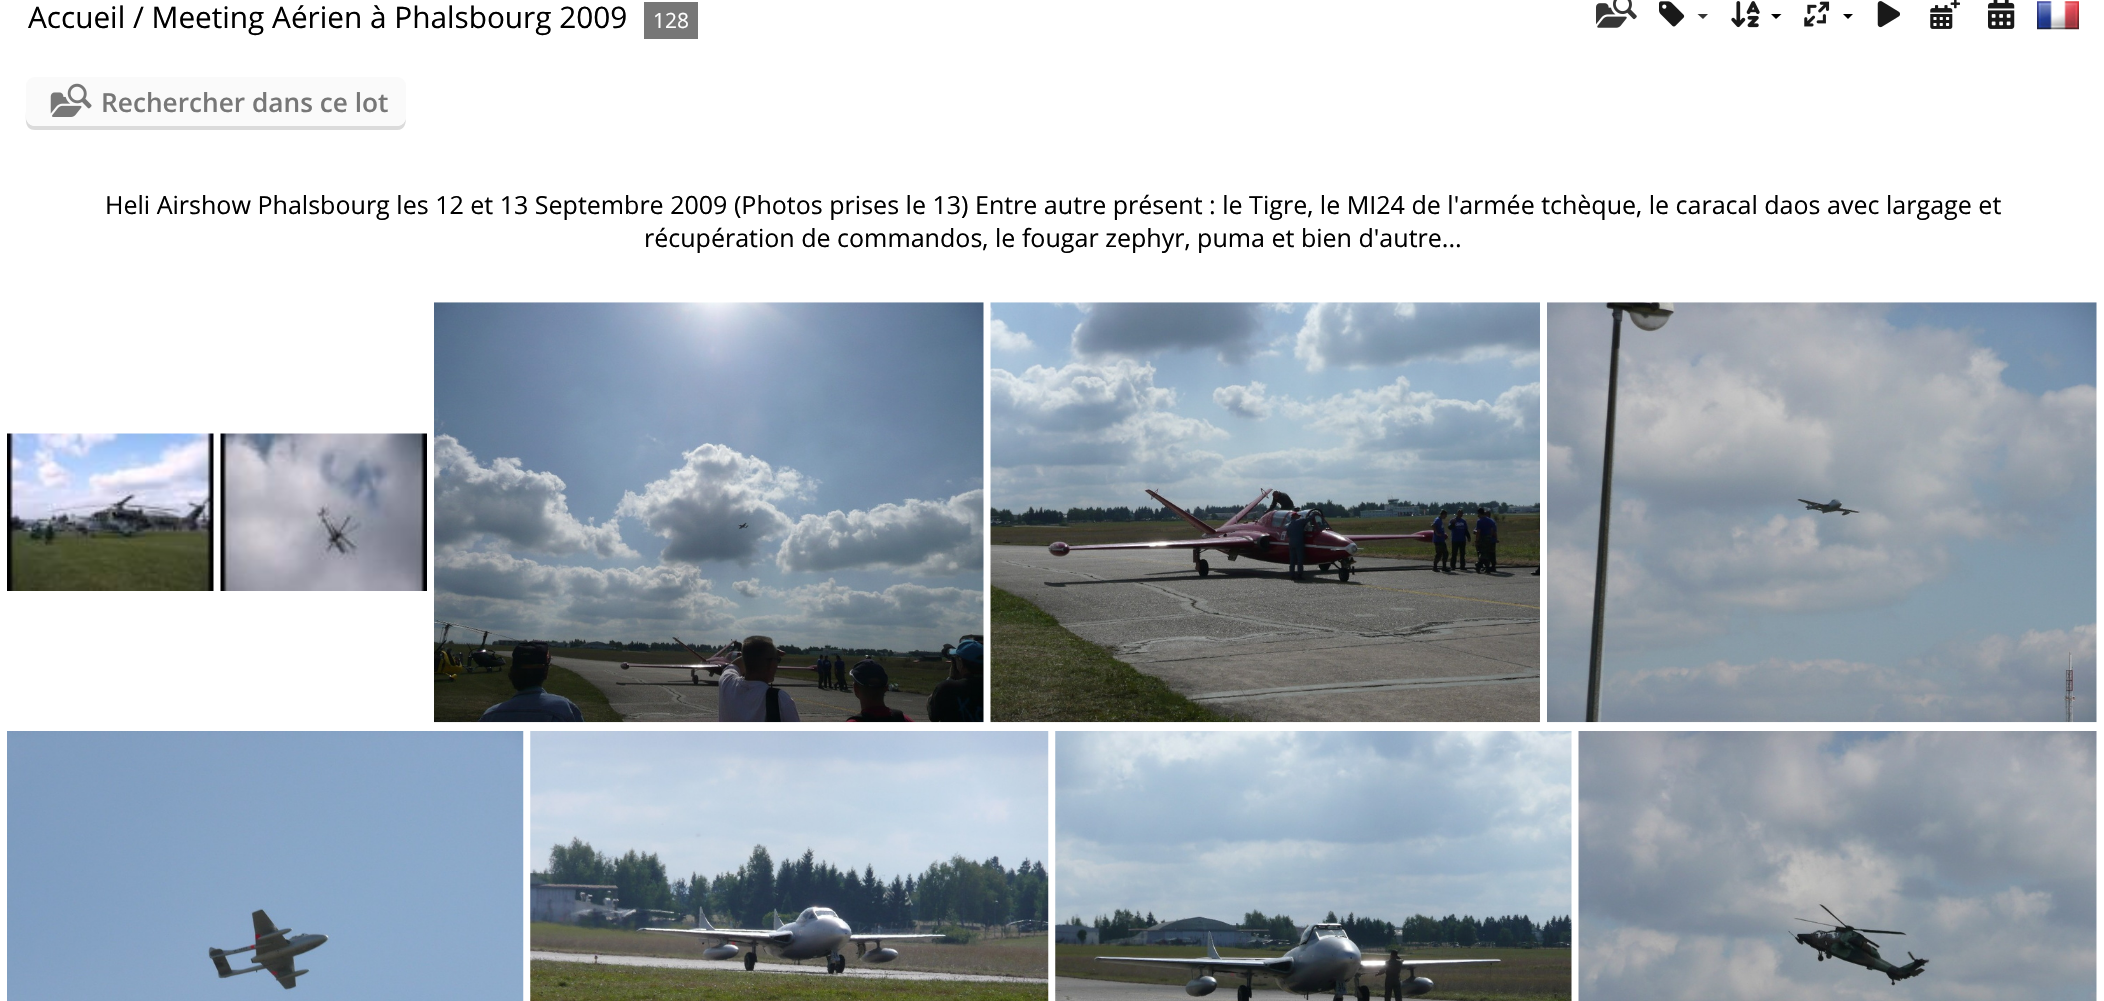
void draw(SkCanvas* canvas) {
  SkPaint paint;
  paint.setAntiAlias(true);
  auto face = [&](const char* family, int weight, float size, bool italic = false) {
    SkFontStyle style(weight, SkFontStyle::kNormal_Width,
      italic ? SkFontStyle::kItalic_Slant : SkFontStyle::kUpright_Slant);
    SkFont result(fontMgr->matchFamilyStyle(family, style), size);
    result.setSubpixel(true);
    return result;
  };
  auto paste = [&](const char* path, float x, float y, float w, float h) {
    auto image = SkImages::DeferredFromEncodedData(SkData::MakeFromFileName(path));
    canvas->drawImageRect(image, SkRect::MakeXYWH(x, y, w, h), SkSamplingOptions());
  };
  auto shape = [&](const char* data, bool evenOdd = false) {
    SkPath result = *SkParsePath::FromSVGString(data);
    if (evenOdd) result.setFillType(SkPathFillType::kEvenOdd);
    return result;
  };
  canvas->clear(0xffffffff);
  paint.setColor(0xff777777);
  canvas->drawRect(SkRect::MakeXYWH(644, 2, 54, 37), paint);
  paste("img/1.png", 1596, 0, 41, 28);
  paste("img/2.png", 1659, 1, 26, 26);
  paint.setColor(0xff363636);
  canvas->drawPath(shape("M1697.5 14H1708L1703 19Z"), paint);
  paste("img/3.png", 1731, 1, 29, 27);
  paint.setColor(0xff000000);
  canvas->drawPath(shape("M1771 14H1781.5L1776 19Z"), paint);
  paste("img/4.png", 1804, 1, 26, 26);
  canvas->drawPath(shape("M1843 14H1853L1848 19Z"), paint);
  paste("img/5.png", 1877, 1, 23, 27);
  paste("img/6.png", 1930, 0, 30, 29);
  paste("img/7.png", 1988, 0, 27, 29);
  paste("img/8.png", 2037, 1, 42, 29);
  paint.setColor(0xffdbdbdb);
  canvas->drawPath(shape("M26 88V111C26 118 24 130 35 130H397C405 130 406 123 406 117C406 122 402 126 397 126H35C30 126 26 122 26 117Z"), paint);
  paint.setColor(0xfffafafa);
  canvas->drawRoundRect(SkRect::MakeXYWH(26, 77, 380, 49), 9, 9, paint);
  paste("img/9.png", 50, 83, 42, 34);
  paste("img/10.png", 7, 433, 207, 158);
  paste("img/11.png", 220, 433, 207, 158);
  paste("img/12.png", 434, 302, 550, 421);
  paste("img/13.png", 990, 302, 550, 421);
  paste("img/14.png", 1547, 302, 550, 421);
  paste("img/15.png", 7, 731, 517, 270);
  paste("img/16.png", 530, 731, 519, 270);
  paste("img/17.png", 1055, 731, 517, 270);
  paste("img/18.png", 1578, 731, 519, 270);
  auto f0 = face("Open Sans", 400, 29.75f);
  paint.setColor(0xff000000);
  canvas->drawString("Accueil / Meeting Aérien à Phalsbourg 2009", 28, 28, f0, paint);
  auto f1 = face("Open Sans", 400, 21);
  paint.setColor(0xffffffff);
  canvas->drawString("128", 653, 28, f1, paint);
  auto f2 = face("Open Sans", 600, 26.25f);
  paint.setColor(0xff777777);
  canvas->drawString("Rechercher dans ce lot", 101, 112, f2, paint);
  auto f3 = face("Open Sans", 400, 25.03f);
  paint.setColor(0xff000000);
  canvas->drawString("Heli Airshow Phalsbourg les 12 et 13 Septembre 2009 (Photos prises le 13) Entre autre présent : le Tigre, le MI24 de l'armée tchèque, le caracal daos avec largage et", 105, 214, f3, paint);
  canvas->drawString("récupération de commandos, le fougar zephyr, puma et bien d'autre...", 644, 247, f3, paint);
}
